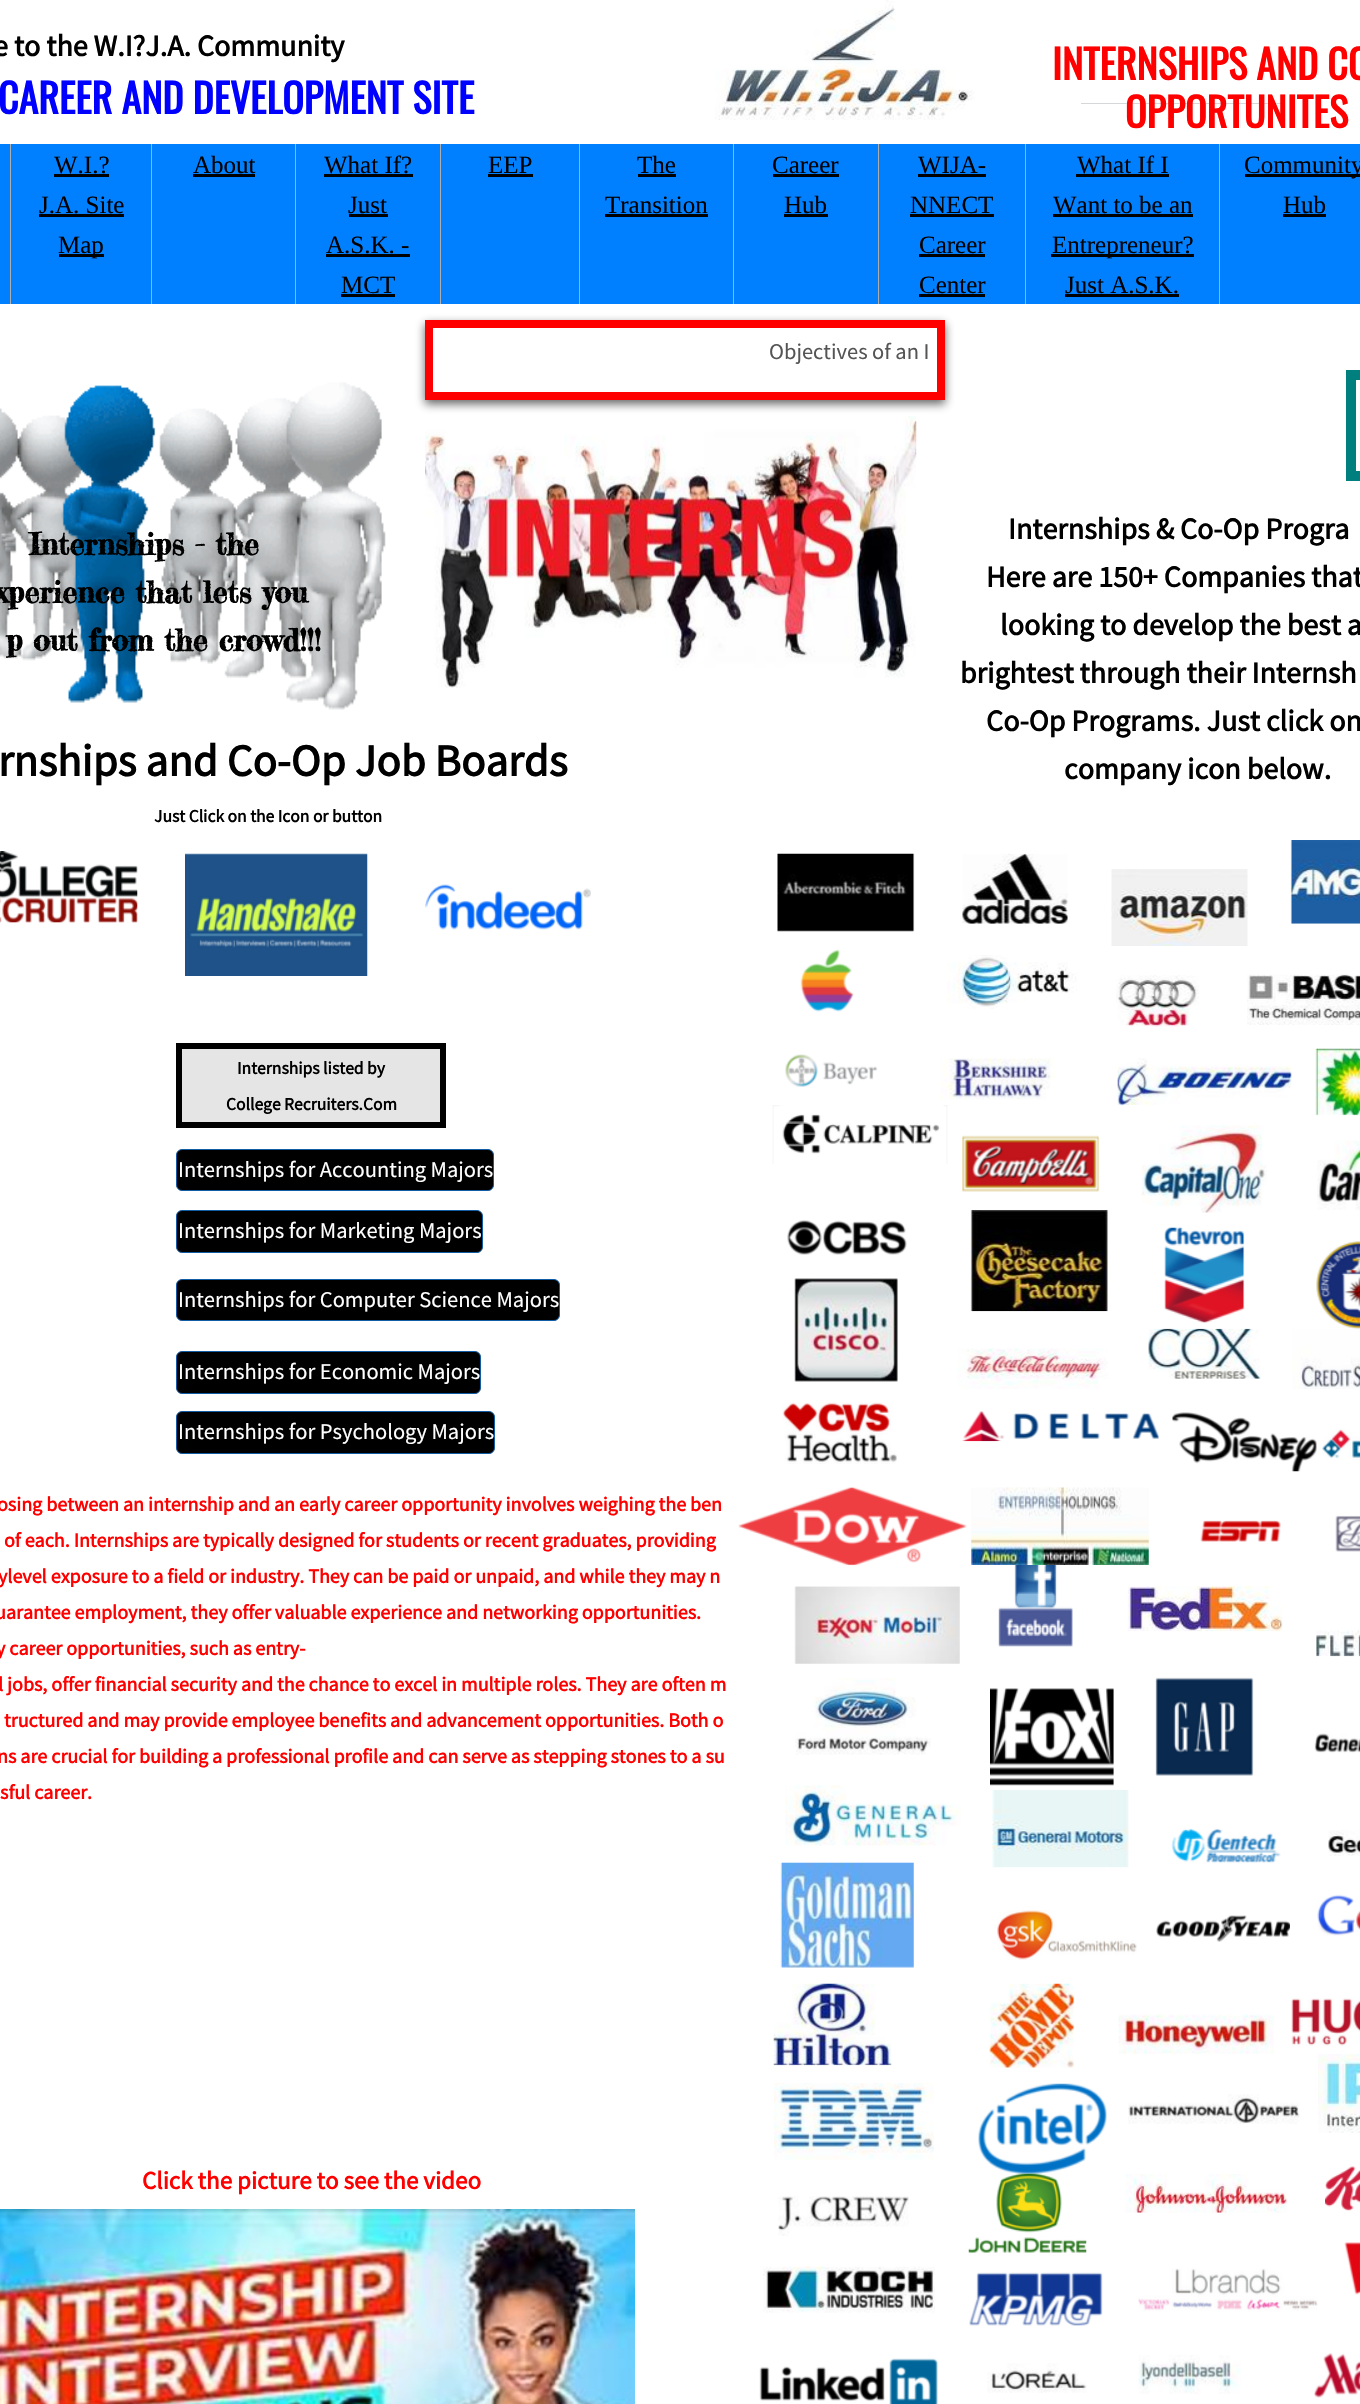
void draw(SkCanvas* canvas) {
  SkPaint paint;
  paint.setAntiAlias(true);
  auto face = [&](const char* family, int weight, float size, bool italic = false) {
    SkFontStyle style(weight, SkFontStyle::kNormal_Width,
      italic ? SkFontStyle::kItalic_Slant : SkFontStyle::kUpright_Slant);
    SkFont result(fontMgr->matchFamilyStyle(family, style), size);
    result.setSubpixel(true);
    return result;
  };
  auto paste = [&](const char* path, float x, float y, float w, float h) {
    auto image = SkImages::DeferredFromEncodedData(SkData::MakeFromFileName(path));
    canvas->drawImageRect(image, SkRect::MakeXYWH(x, y, w, h), SkSamplingOptions());
  };
  auto shape = [&](const char* data, bool evenOdd = false) {
    SkPath result = *SkParsePath::FromSVGString(data);
    if (evenOdd) result.setFillType(SkPathFillType::kEvenOdd);
    return result;
  };
  canvas->clear(0xffffffff);
  paste("img/1.png", 715, 0, 260, 120);
  {
    const struct { float x, y, w, h; SkColor color; } items[] = {
      {1081, 103, 203, 1, 0xffd6d7d8},
      {0, 144, 10, 160, 0xff007fff},
      {10, 144, 1, 160, 0xffaeaeae},
      {11, 144, 284, 160, 0xff007fff},
      {151, 144, 1, 160, 0xffaeaeae},
      {54, 174, 55, 3, 0xff000000},
      {39, 214, 85, 3, 0xff000000},
      {59, 254, 45, 3, 0xff000000},
      {295, 144, 1, 160, 0xffaeaeae},
      {193, 174, 62, 3, 0xff000000},
      {296, 144, 144, 160, 0xff007fff},
      {440, 144, 1, 160, 0xffaeaeae},
      {324, 174, 89, 3, 0xff000000},
      {349, 214, 39, 3, 0xff000000},
      {326, 254, 84, 3, 0xff000000},
      {341, 294, 54, 3, 0xff000000},
      {441, 144, 138, 160, 0xff007fff},
      {579, 144, 1, 160, 0xffaeaeae},
      {488, 174, 45, 3, 0xff000000},
      {580, 144, 153, 160, 0xff007fff},
      {733, 144, 1, 160, 0xffaeaeae},
      {638, 174, 38, 3, 0xff000000},
      {605, 214, 103, 3, 0xff000000},
      {734, 144, 144, 160, 0xff007fff},
      {878, 144, 1, 160, 0xffaeaeae},
      {773, 174, 66, 3, 0xff000000},
      {784, 214, 44, 3, 0xff000000},
      {879, 144, 146, 160, 0xff007fff},
      {1025, 144, 1, 160, 0xffaeaeae},
      {918, 174, 68, 3, 0xff000000},
      {910, 214, 84, 3, 0xff000000},
      {919, 254, 66, 3, 0xff000000},
      {919, 294, 66, 3, 0xff000000},
      {1026, 144, 193, 160, 0xff007fff},
      {1219, 144, 1, 160, 0xffaeaeae},
      {1076, 174, 93, 3, 0xff000000},
      {1053, 214, 140, 3, 0xff000000},
      {1051, 254, 143, 3, 0xff000000},
      {1065, 294, 114, 3, 0xff000000},
      {1220, 144, 140, 160, 0xff007fff},
      {1245, 174, 115, 3, 0xff000000},
      {1283, 214, 43, 3, 0xff000000},
    };
    for (auto [x, y, w, h, color] : items) {
      paint.setColor(color);
      canvas->drawRect(SkRect::MakeXYWH(x, y, w, h), paint);
    }
  }
  paste("img/3.png", 425, 416, 492, 272);
  canvas->save();
  canvas->clipPath(shape("M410 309H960V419H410ZM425 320H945V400H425Z", true), true);
  paint.setColor(0xbf323232);
  paint.setMaskFilter(SkMaskFilter::MakeBlur(kNormal_SkBlurStyle, 4.5f));
  canvas->drawRect(SkRect::MakeXYWH(425, 324, 520, 80), paint);
  paint.setMaskFilter(nullptr);
  canvas->restore();
  paint.setStroke(true);
  paint.setStrokeWidth(8);
  paint.setColor(0xffff0000);
  canvas->drawRect(SkRect::MakeXYWH(429, 324, 512, 72), paint);
  paste("img/2.png", 0, 382, 386, 328);
  paint.setStrokeWidth(10);
  paint.setColor(0xff007f7f);
  canvas->drawRect(SkRect::MakeXYWH(1351, 375, 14, 101), paint);
  paste("img/4.png", 0, 851, 138, 72);
  paste("img/5.png", 185, 853, 183, 123);
  paste("img/6.png", 425, 884, 166, 46);
  paste("img/7.png", 777, 853, 138, 79);
  paste("img/8.png", 962, 853, 106, 71);
  paste("img/9.png", 1111, 869, 137, 77);
  paste("img/10.png", 1290, 840, 70, 84);
  paste("img/11.png", 800, 949, 54, 63);
  paste("img/12.png", 947, 955, 130, 54);
  paste("img/13.png", 1116, 975, 83, 52);
  paste("img/14.png", 1247, 974, 113, 51);
  paint.setStroke(false);
  paint.setColor(0xffe5e5e5);
  canvas->drawRect(SkRect::MakeXYWH(179, 1046, 264, 79), paint);
  paint.setStroke(true);
  paint.setStrokeWidth(6);
  paint.setColor(0xff000000);
  canvas->drawRect(SkRect::MakeXYWH(179, 1046, 264, 79), paint);
  paste("img/15.png", 785, 1054, 93, 33);
  paste("img/16.png", 940, 1058, 115, 42);
  paste("img/17.png", 1117, 1058, 175, 48);
  paste("img/18.png", 1315, 1048, 45, 68);
  paint.setStroke(false);
  canvas->drawRoundRect(SkRect::MakeXYWH(176.5f, 1149.5f, 317, 41), 5.5f, 5.5f, paint);
  paint.setStroke(true);
  paint.setStrokeWidth(1);
  paint.setColor(0xff125ca6);
  canvas->drawRoundRect(SkRect::MakeXYWH(176.5f, 1149.5f, 317, 41), 5.5f, 5.5f, paint);
  paste("img/19.png", 772, 1105, 176, 59);
  paste("img/20.png", 962, 1135, 138, 57);
  paste("img/21.png", 1141, 1125, 126, 88);
  paste("img/22.png", 1317, 1140, 43, 70);
  paint.setStroke(false);
  paint.setColor(0xff000000);
  canvas->drawRoundRect(SkRect::MakeXYWH(176.5f, 1210.5f, 306, 42), 5.5f, 5.5f, paint);
  paint.setStroke(true);
  paint.setColor(0xff125ca6);
  canvas->drawRoundRect(SkRect::MakeXYWH(176.5f, 1210.5f, 306, 42), 5.5f, 5.5f, paint);
  paste("img/23.png", 787, 1220, 120, 35);
  paste("img/24.png", 970, 1210, 138, 102);
  paste("img/25.png", 1164, 1227, 81, 96);
  paste("img/26.png", 1316, 1241, 44, 88);
  paint.setStroke(false);
  paint.setColor(0xff000000);
  canvas->drawRoundRect(SkRect::MakeXYWH(176.5f, 1279.5f, 383, 41), 5.5f, 5.5f, paint);
  paint.setStroke(true);
  paint.setColor(0xff125ca6);
  canvas->drawRoundRect(SkRect::MakeXYWH(176.5f, 1279.5f, 383, 41), 5.5f, 5.5f, paint);
  paste("img/27.png", 794, 1278, 104, 104);
  paint.setStroke(false);
  paint.setColor(0xff000000);
  canvas->drawRoundRect(SkRect::MakeXYWH(176.5f, 1351.5f, 304, 42), 5.5f, 5.5f, paint);
  paint.setStroke(true);
  paint.setColor(0xff125ca6);
  canvas->drawRoundRect(SkRect::MakeXYWH(176.5f, 1351.5f, 304, 42), 5.5f, 5.5f, paint);
  paste("img/28.png", 957, 1348, 151, 41);
  paste("img/29.png", 1148, 1328, 113, 51);
  paste("img/30.png", 1292, 1328, 68, 61);
  paint.setStroke(false);
  paint.setColor(0xff000000);
  canvas->drawRoundRect(SkRect::MakeXYWH(176.5f, 1411.5f, 318, 42), 5.5f, 5.5f, paint);
  paint.setStroke(true);
  paint.setColor(0xff125ca6);
  canvas->drawRoundRect(SkRect::MakeXYWH(176.5f, 1411.5f, 318, 42), 5.5f, 5.5f, paint);
  paste("img/31.png", 782, 1402, 115, 62);
  paste("img/32.png", 962, 1411, 197, 31);
  paste("img/33.png", 1172, 1412, 145, 60);
  paste("img/34.png", 1322, 1429, 38, 31);
  paste("img/35.png", 738, 1487, 229, 79);
  paste("img/36.png", 971, 1487, 178, 78);
  paste("img/37.png", 1200, 1520, 81, 22);
  paste("img/38.png", 1335, 1515, 25, 37);
  paste("img/39.png", 794, 1586, 166, 78);
  paste("img/40.png", 998, 1565, 75, 82);
  paste("img/41.png", 1127, 1586, 156, 45);
  paste("img/42.png", 1316, 1630, 44, 27);
  paste("img/43.png", 795, 1678, 136, 77);
  paste("img/44.png", 990, 1688, 124, 98);
  paste("img/45.png", 1155, 1677, 99, 99);
  paste("img/46.png", 1314, 1733, 46, 20);
  paste("img/47.png", 785, 1785, 176, 61);
  paste("img/48.png", 992, 1790, 137, 78);
  paste("img/49.png", 1171, 1828, 110, 35);
  paste("img/50.png", 1328, 1830, 32, 26);
  paste("img/51.png", 780, 1862, 134, 106);
  paste("img/52.png", 997, 1910, 140, 50);
  paste("img/53.png", 1156, 1915, 134, 27);
  paste("img/54.png", 1317, 1894, 43, 42);
  paste("img/55.png", 773, 1983, 119, 83);
  paste("img/56.png", 989, 1983, 86, 85);
  paste("img/57.png", 1118, 2014, 156, 40);
  paste("img/58.png", 1291, 1998, 69, 48);
  paste("img/59.png", 774, 2083, 160, 77);
  paste("img/60.png", 978, 2083, 129, 91);
  paste("img/61.png", 1128, 2094, 172, 30);
  paste("img/62.png", 1318, 2054, 42, 79);
  paste("img/63.png", 778, 2196, 131, 40);
  paste("img/64.png", 968, 2173, 119, 80);
  paste("img/65.png", 1125, 2174, 163, 39);
  paste("img/66.png", 1325, 2166, 35, 45);
  paste("img/67.png", 0, 2209, 635, 195);
  paste("img/68.png", 763, 2266, 172, 47);
  paste("img/69.png", 969, 2272, 134, 54);
  paste("img/70.png", 1138, 2268, 180, 43);
  paste("img/71.png", 1344, 2242, 16, 53);
  paste("img/72.png", 759, 2358, 179, 46);
  paste("img/73.png", 987, 2363, 100, 30);
  paste("img/74.png", 1138, 2355, 103, 39);
  paste("img/75.png", 1314, 2353, 46, 45);
  auto f0 = face("Source Sans Pro", 700, 30);
  paint.setStroke(false);
  paint.setColor(0xff000000);
  canvas->drawString("e to the W.I?J.A. Community", -7, 56, f0, paint);
  auto f1 = face("Oswald", 700, 40);
  paint.setColor(0xff0000ff);
  canvas->drawString("CAREER AND DEVELOPMENT SITE", -2, 114, f1, paint);
  paint.setColor(0xffff0000);
  canvas->drawString("INTERNSHIPS AND CO", 1052, 80, f1, paint);
  canvas->drawString("OPPORTUNITES", 1125, 128, f1, paint);
  auto f2 = face("Liberation Serif", 400, 25);
  paint.setColor(0xff000000);
  {
    const struct { const char* s; float x, y; } items[] = {
      {"W.I.?", 54, 173},
      {"J.A. Site", 39, 213},
      {"Map", 58, 253},
      {"About", 193, 173},
      {"What If?", 324, 173},
      {"Just", 348, 213},
      {"A.S.K. -", 326, 253},
      {"MCT", 341, 293},
      {"EEP", 488, 173},
      {"The", 637, 173},
      {"Transition", 605, 213},
      {"Career", 772, 173},
      {"Hub", 784, 213},
      {"WIJA-", 918, 173},
      {"NNECT", 910, 213},
      {"Career", 919, 253},
      {"Center", 919, 293},
      {"What If I", 1077, 173},
      {"Want to be an", 1053, 213},
      {"Entrepreneur?", 1052, 253},
      {"Just A.S.K.", 1065, 293},
      {"Community", 1244, 173},
      {"Hub", 1283, 213},
    };
    for (auto [s, x, y] : items) {
      canvas->drawString(s, x, y, f2, paint);
    }
  }
  auto f3 = face("Source Sans Pro", 400, 22.5f);
  paint.setColor(0xff555555);
  canvas->drawString("Objectives of an I", 769, 359, f3, paint);
  auto f4 = face("Fredericka the Great", 700, 30);
  paint.setColor(0xff000000);
  {
    const struct { const char* s; float x, y; } items[] = {
      {"Internships - the", 29, 555},
      {"xperience that lets you", -5, 603},
      {"p out from the crowd!!!", 6, 651},
    };
    for (auto [s, x, y] : items) {
      canvas->drawString(s, x, y, f4, paint);
    }
  }
  {
    const struct { const char* s; float x, y; } items[] = {
      {"Internships & Co-Op Progra", 1008, 539},
      {"Here are 150+ Companies that", 986, 587},
      {"looking to develop the best a", 1000, 635},
      {"brightest through their Internsh", 960, 683},
      {"Co-Op Programs. Just click on", 986, 731},
      {"company icon below.", 1064, 779},
    };
    for (auto [s, x, y] : items) {
      canvas->drawString(s, x, y, f0, paint);
    }
  }
  auto f5 = face("Source Sans Pro", 700, 45);
  canvas->drawString("rnships and Co-Op Job Boards", -2, 776, f5, paint);
  auto f6 = face("Source Sans Pro", 700, 17.5f);
  {
    const struct { const char* s; float x, y; } items[] = {
      {"Just Click on the Icon or button", 154, 822},
      {"Internships listed by", 237, 1074},
      {"College Recruiters.Com", 226, 1110},
    };
    for (auto [s, x, y] : items) {
      canvas->drawString(s, x, y, f6, paint);
    }
  }
  paint.setColor(0xffffffff);
  {
    const struct { const char* s; float x, y; } items[] = {
      {"Internships for Accounting Majors", 178, 1177},
      {"Internships for Marketing Majors", 178, 1238},
      {"Internships for Computer Science Majors", 178, 1307},
      {"Internships for Economic Majors", 178, 1379},
      {"Internships for Psychology Majors", 178, 1439},
    };
    for (auto [s, x, y] : items) {
      canvas->drawString(s, x, y, f3, paint);
    }
  }
  auto f7 = face("Source Sans Pro", 700, 20);
  paint.setColor(0xffff0000);
  {
    const struct { const char* s; float x, y; } items[] = {
      {"osing between an internship and an early career opportunity involves weighing the ben", -3, 1511},
      {"of each. Internships are typically designed for students or recent graduates, providing", 4, 1547},
      {"ylevel exposure to a field or industry. They can be paid or unpaid, and while they may n", -2, 1583},
      {"uarantee employment, they offer valuable experience and networking opportunities.", -5, 1619},
      {"y career opportunities, such as entry-", -4, 1655},
      {"l jobs, offer financial security and the chance to excel in multiple roles. They are often m", -2, 1691},
      {"tructured and may provide employee benefits and advancement opportunities. Both o", 4, 1727},
      {"ns are crucial for building a professional profile and can serve as stepping stones to a su", -3, 1763},
      {"sful career.", 0, 1799},
    };
    for (auto [s, x, y] : items) {
      canvas->drawString(s, x, y, f7, paint);
    }
  }
  auto f8 = face("Source Sans Pro", 700, 25);
  canvas->drawString("Click the picture to see the video", 142, 2189, f8, paint);
}
